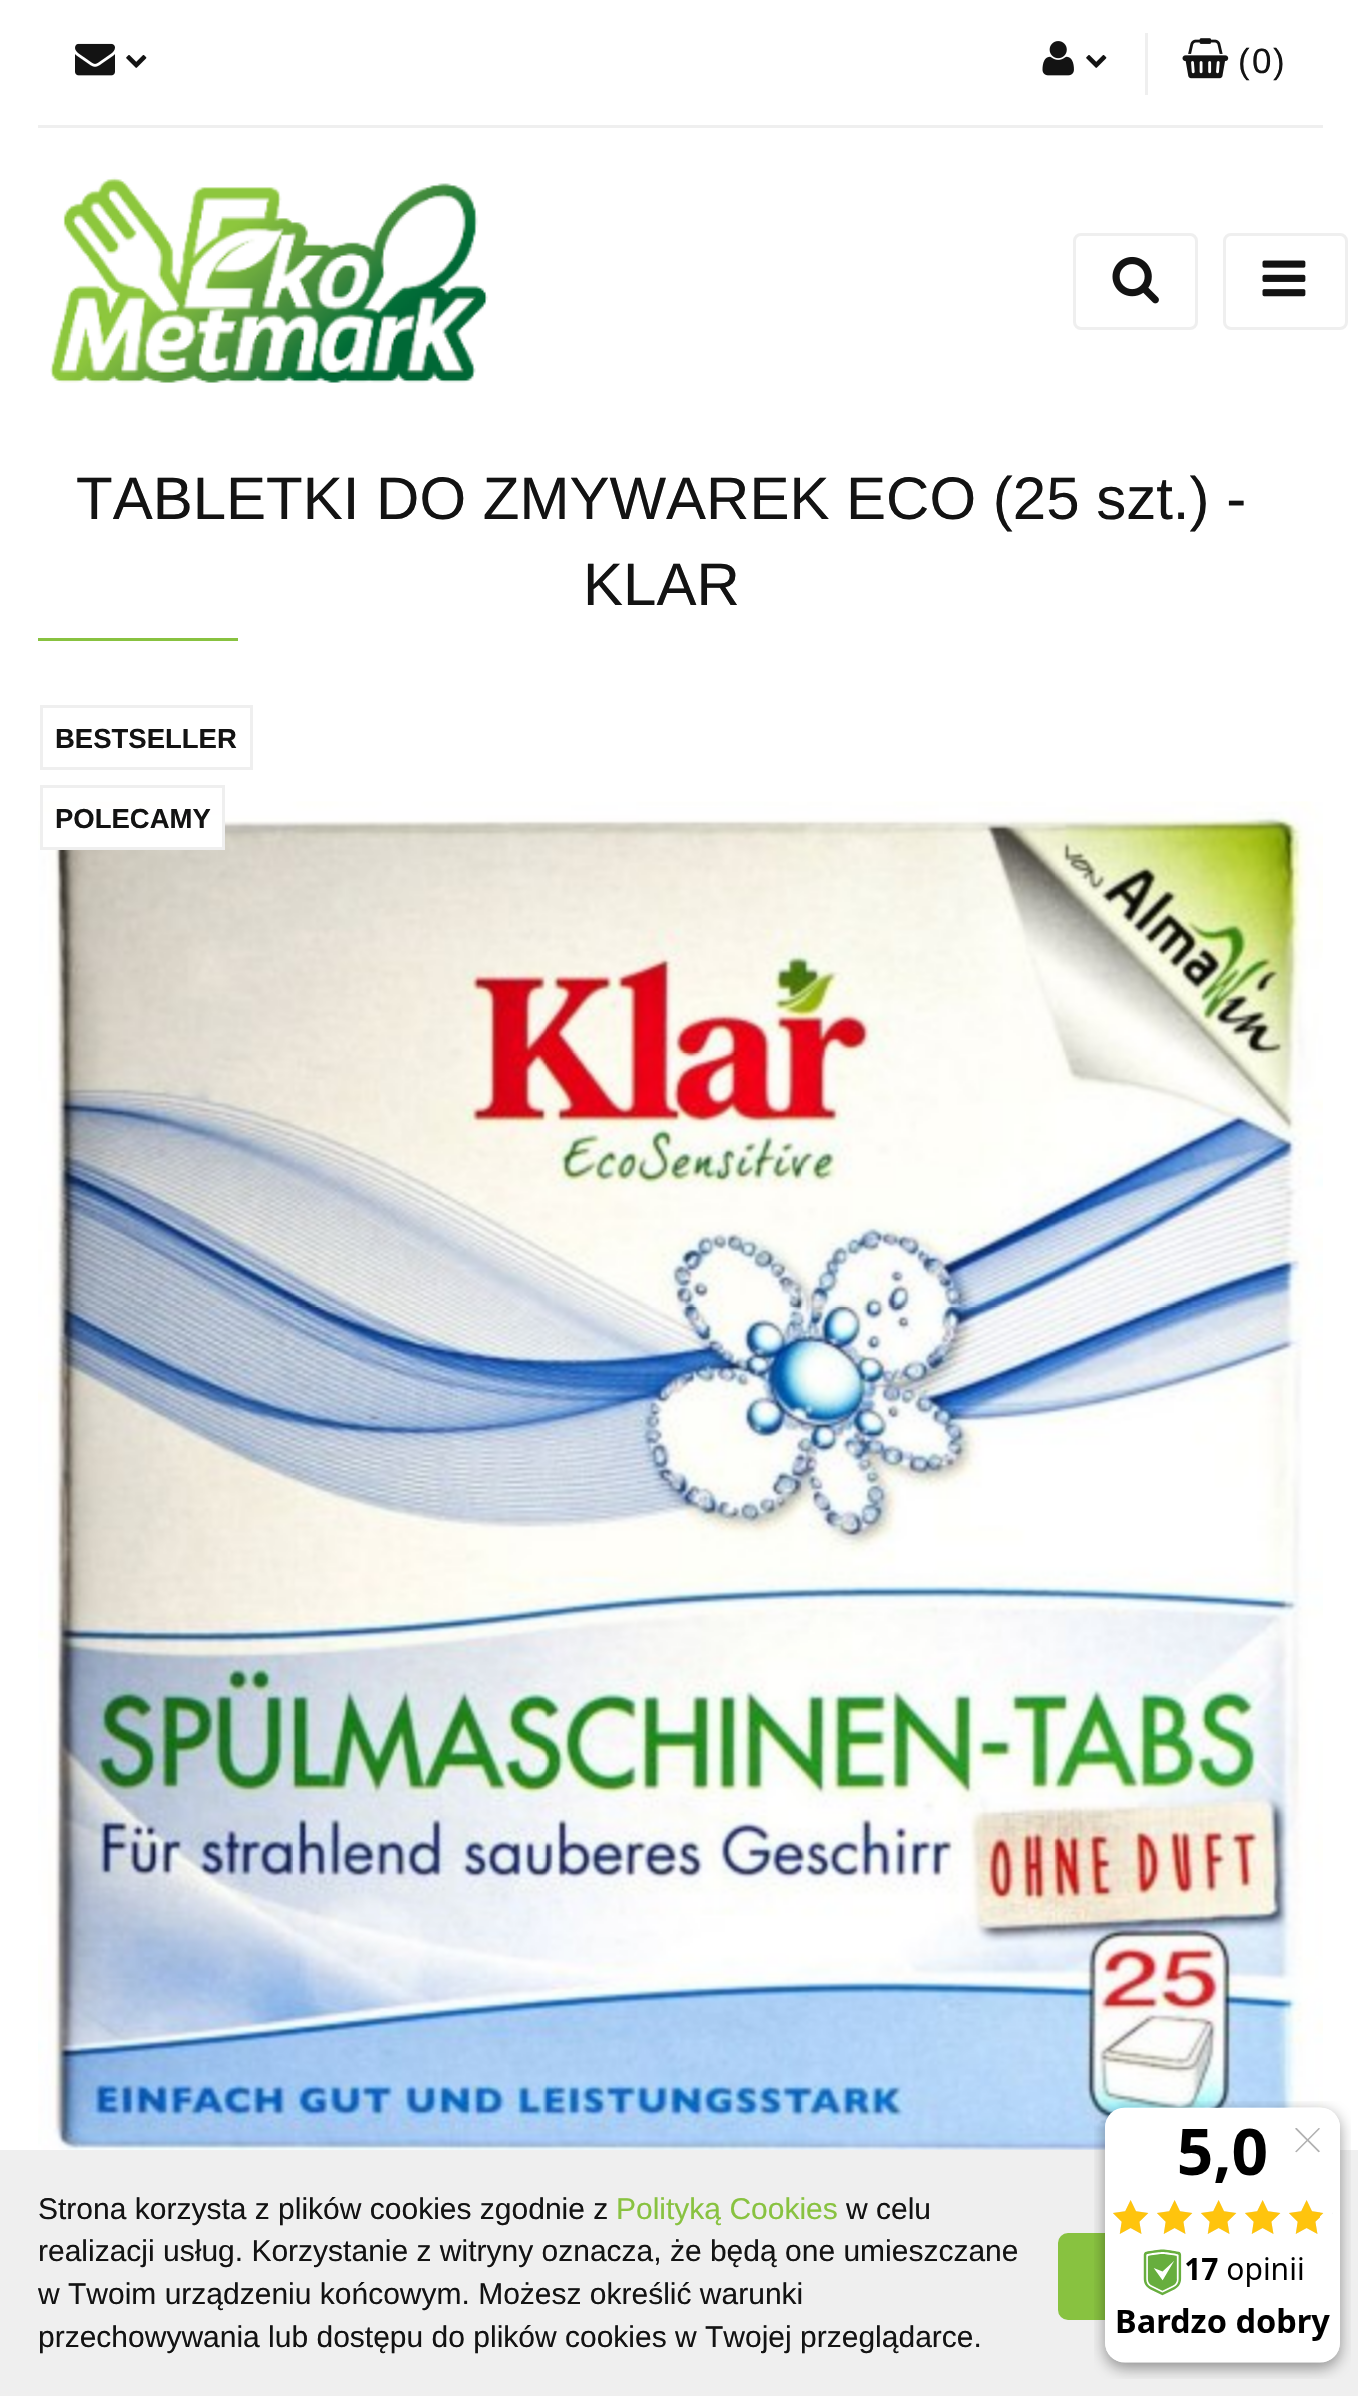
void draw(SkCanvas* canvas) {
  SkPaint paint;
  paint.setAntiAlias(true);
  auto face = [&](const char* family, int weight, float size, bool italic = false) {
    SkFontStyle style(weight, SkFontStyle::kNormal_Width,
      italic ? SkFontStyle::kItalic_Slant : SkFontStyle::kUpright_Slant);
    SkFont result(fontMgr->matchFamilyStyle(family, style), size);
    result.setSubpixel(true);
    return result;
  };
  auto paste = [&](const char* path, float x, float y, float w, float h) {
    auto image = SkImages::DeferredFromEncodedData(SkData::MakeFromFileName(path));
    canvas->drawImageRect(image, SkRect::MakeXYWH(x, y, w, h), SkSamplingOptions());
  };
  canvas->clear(0xffffffff);
  paint.setColor(0xffefefef);
  canvas->drawRect(SkRect::MakeXYWH(38, 125, 1285, 3), paint);
  paste("img/1.png", 75, 43, 40, 33);
  paste("img/2.png", 126, 55, 21, 13);
  paste("img/3.png", 1042, 41, 32, 35);
  paste("img/2.png", 1086, 55, 21, 13);
  canvas->drawRect(SkRect::MakeXYWH(1145, 33, 3, 62), paint);
  paste("img/4.png", 1182, 38, 47, 41);
  paste("img/5.png", 50, 177, 438, 206);
  paint.setStroke(true);
  paint.setStrokeWidth(3);
  canvas->drawRoundRect(SkRect::MakeXYWH(1074.5f, 234.5f, 122, 94), 6.5f, 6.5f, paint);
  paste("img/6.png", 1112, 256, 47, 48);
  canvas->drawRoundRect(SkRect::MakeXYWH(1224.5f, 234.5f, 122, 94), 6.5f, 6.5f, paint);
  paste("img/7.png", 1262, 260, 44, 37);
  paint.setStroke(false);
  paint.setColor(0xff88c240);
  canvas->drawRect(SkRect::MakeXYWH(38, 638, 200, 3), paint);
  paint.setStroke(true);
  paint.setColor(0xffefefef);
  canvas->drawRect(SkRect::MakeXYWH(41.5f, 706.5f, 210, 62), paint);
  paste("img/8.png", 38, 801, 1285, 1349);
  paint.setStroke(false);
  paint.setColor(0xffffffff);
  canvas->drawRect(SkRect::MakeXYWH(43, 815, 179, 32), paint);
  paint.setStroke(true);
  paint.setColor(0xffefefef);
  canvas->drawRect(SkRect::MakeXYWH(41.5f, 786.5f, 182, 62), paint);
  paint.setStroke(false);
  canvas->drawRect(SkRect::MakeXYWH(0, 2150, 1358, 246), paint);
  paint.setColor(0xff88c240);
  canvas->drawRoundRect(SkRect::MakeXYWH(1062, 2237, 219, 79), 6, 6, paint);
  paint.setStroke(true);
  paint.setStrokeWidth(8);
  canvas->drawRoundRect(SkRect::MakeXYWH(1062, 2237, 219, 79), 6, 6, paint);
  paste("img/9.png", 1094, 2101, 257, 278);
  auto f0 = face("Liberation Sans", 400, 35);
  paint.setStroke(false);
  paint.setColor(0xff131313);
  {
    const struct { const char* s; float x, y; } items[] = {
      {"(", 1238, 73},
      {"0", 1252, 73},
      {")", 1273, 73},
    };
    for (auto [s, x, y] : items) {
      canvas->drawString(s, x, y, f0, paint);
    }
  }
  auto f1 = face("Liberation Sans", 400, 60);
  canvas->drawString("TABLETKI DO ZMYWAREK ECO (25 szt.) -", 76, 519, f1, paint);
  canvas->drawString("KLAR", 583, 605, f1, paint);
  auto f2 = face("Liberation Sans", 700, 27.5f);
  canvas->drawString("BESTSELLER", 55, 748, f2, paint);
  canvas->drawString("POLECAMY", 55, 828, f2, paint);
  auto f3 = face("Liberation Sans", 400, 30);
  canvas->drawString("Strona korzysta z plików cookies zgodnie z", 38, 2219, f3, paint);
  paint.setColor(0xff88c240);
  canvas->drawString("Polityką Cookies", 616, 2219, f3, paint);
  paint.setColor(0xff131313);
  {
    const struct { const char* s; float x, y; } items[] = {
      {"w celu", 846, 2219},
      {"realizacji usług. Korzystanie z witryny oznacza, że będą one umieszczane", 38, 2261},
      {"w Twoim urządzeniu końcowym. Możesz określić warunki", 38, 2304},
      {"przechowywania lub dostępu do plików cookies w Twojej przeglądarce.", 38, 2347},
    };
    for (auto [s, x, y] : items) {
      canvas->drawString(s, x, y, f3, paint);
    }
  }
}
